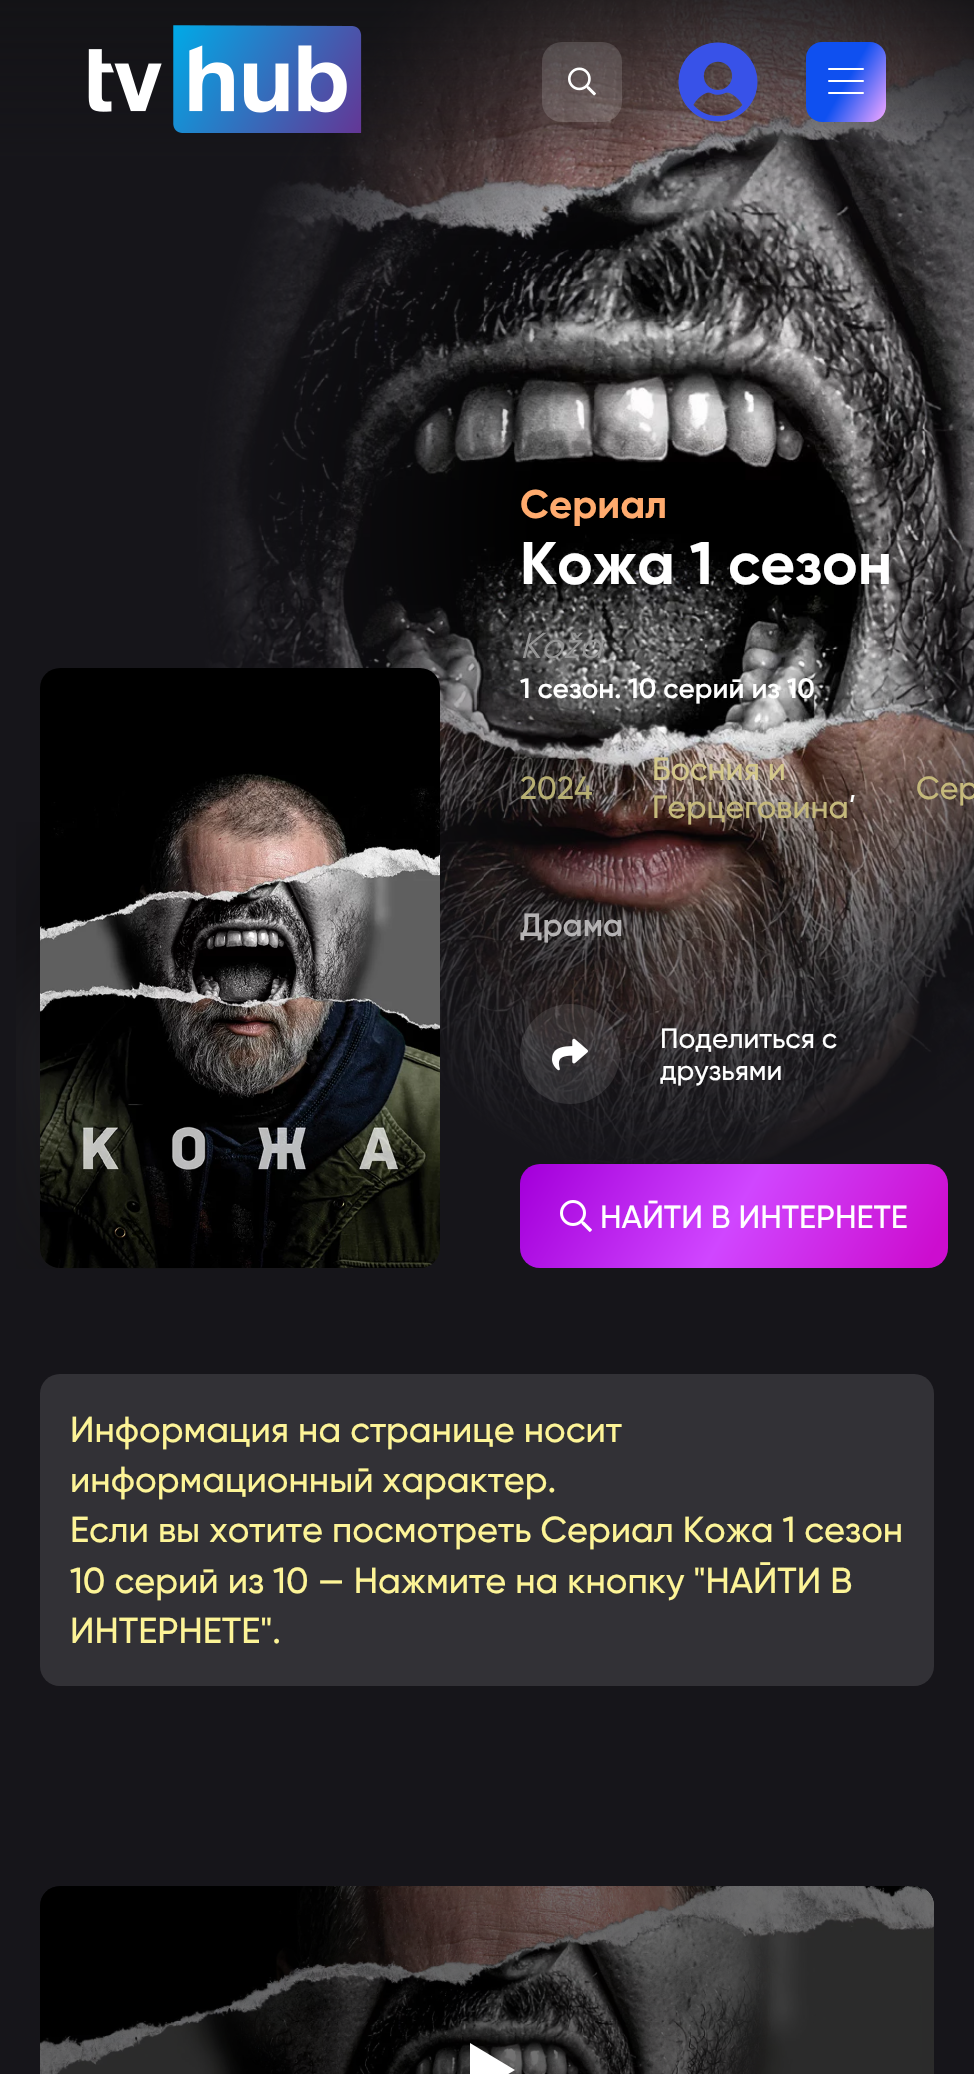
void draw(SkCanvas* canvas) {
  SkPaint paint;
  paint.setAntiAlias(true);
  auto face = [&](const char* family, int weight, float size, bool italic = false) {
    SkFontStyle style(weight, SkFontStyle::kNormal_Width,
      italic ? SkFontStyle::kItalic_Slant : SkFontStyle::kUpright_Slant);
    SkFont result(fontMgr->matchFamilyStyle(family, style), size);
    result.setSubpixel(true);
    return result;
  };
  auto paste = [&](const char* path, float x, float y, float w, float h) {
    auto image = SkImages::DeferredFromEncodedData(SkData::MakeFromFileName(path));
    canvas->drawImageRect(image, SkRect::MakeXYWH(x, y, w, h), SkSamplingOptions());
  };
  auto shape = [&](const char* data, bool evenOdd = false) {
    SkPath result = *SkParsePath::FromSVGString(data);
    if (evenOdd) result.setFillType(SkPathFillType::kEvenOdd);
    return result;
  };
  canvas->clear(0xff16151a);
  paste("img/4.png", 194, 0, 780, 1200);
  {
    const SkColor colors[] = {0x00111113, 0x99111113};
    const float stops[] = {0, 1};
    const SkPoint ends[] = {{487, 164}, {487, 0}};
    paint.setShader(SkGradientShader::MakeLinear(ends, colors, stops, 2, SkTileMode::kClamp));
    paint.setAlpha(255);
  }
  canvas->drawRect(SkRect::MakeXYWH(0, 0, 974, 158), paint);
  paste("img/1.png", 88, 25, 274, 108);
  paint.setShader(nullptr);
  paint.setColor(0x26ffffff);
  canvas->drawRoundRect(SkRect::MakeXYWH(542, 42, 80, 80), 20, 20, paint);
  paste("img/2.png", 568, 67, 28, 29);
  paste("img/3.png", 678, 42, 80, 80);
  {
    const SkColor colors[] = {0xffde9fff, 0xff0f50f0, 0xff0f50f0, 0xff0039c6};
    const float stops[] = {0.05f, 0.5f, 0.98f, 1};
    const SkPoint ends[] = {{893, 109}, {799, 55}};
    paint.setShader(SkGradientShader::MakeLinear(ends, colors, stops, 4, SkTileMode::kClamp));
    paint.setAlpha(255);
  }
  canvas->drawRoundRect(SkRect::MakeXYWH(806, 42, 80, 80), 16, 16, paint);
  paint.setShader(nullptr);
  paint.setColor(0xffffffff);
  canvas->drawRoundRect(SkRect::MakeXYWH(828, 68, 36, 2), 1, 1, paint);
  canvas->drawRoundRect(SkRect::MakeXYWH(828, 80, 36, 2), 1, 1, paint);
  canvas->drawRoundRect(SkRect::MakeXYWH(828, 92, 36, 2), 1, 1, paint);
  paste("img/6.png", 16, 822, 363, 447);
  paste("img/5.png", 40, 668, 400, 600);
  paint.setColor(0x1af2f2f2);
  canvas->drawCircle(570, 1054, 50, paint);
  paste("img/7.png", 552, 1038, 36, 33);
  {
    const SkColor colors[] = {0xffcc0dcf, 0xffd046ff, 0xffa500db, 0xff8400af};
    const float stops[] = {0.05f, 0.5f, 0.98f, 1};
    const SkPoint ends[] = {{917, 1322}, {551, 1110}};
    paint.setShader(SkGradientShader::MakeLinear(ends, colors, stops, 4, SkTileMode::kClamp));
    paint.setAlpha(255);
  }
  canvas->drawRoundRect(SkRect::MakeXYWH(520, 1164, 428, 104), 20, 20, paint);
  paste("img/8.png", 560, 1200, 32, 32);
  paint.setShader(nullptr);
  paint.setColor(0xff323136);
  canvas->drawRoundRect(SkRect::MakeXYWH(40, 1374, 894, 312), 20, 20, paint);
  paste("img/9.png", 40, 1886, 894, 188);
  paint.setColor(0x8c000000);
  canvas->drawRoundRect(SkRect::MakeXYWH(40, 1886, 894, 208), 20, 20, paint);
  paint.setColor(0xffffffff);
  canvas->drawPath(shape("M470 2043V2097L515 2070Z"), paint);
  auto f0 = face("Gilroy", 700, 40);
  paint.setColor(0xffffab6e);
  canvas->drawString("Сериал", 520, 518, f0, paint);
  auto f1 = face("Gilroy", 700, 60);
  paint.setColor(0xffffffff);
  canvas->drawString("Кожа 1 сезон", 520, 584, f1, paint);
  auto f2 = face("Gilroy", 400, 36, true);
  paint.setColor(0xff959595);
  canvas->drawString("Koža", 520, 658, f2, paint);
  auto f3 = face("Gilroy", 600, 28);
  paint.setColor(0xffffffff);
  canvas->drawString("1 сезон. 10 серий из 10", 520, 698, f3, paint);
  auto f4 = face("Gilroy", 500, 32);
  paint.setColor(0xffb7af73);
  canvas->drawString("2024", 520, 799, f4, paint);
  paint.setColor(0xffd4c88a);
  canvas->drawString("Босния и", 652, 780, f4, paint);
  paint.setColor(0xffc5b97b);
  canvas->drawString("Герцеговина", 652, 818, f4, paint);
  auto f5 = face("Gilroy", 500, 28);
  paint.setColor(0xffffffff);
  canvas->drawString(",", 849, 798, f5, paint);
  paint.setColor(0xffc5b97b);
  canvas->drawString("Сер", 916, 799, f4, paint);
  auto f6 = face("Gilroy", 600, 32);
  paint.setColor(0xffb5b3b4);
  canvas->drawString("Драма", 520, 936, f6, paint);
  paint.setColor(0xffffffff);
  canvas->drawString("Поделиться с", 660, 1048, f5, paint);
  canvas->drawString("друзьями", 660, 1080, f5, paint);
  canvas->drawString("НАЙТИ В ИНТЕРНЕТЕ", 600, 1228, f4, paint);
  auto f7 = face("Gilroy", 500, 36);
  paint.setColor(0xfffdf497);
  {
    const struct { const char* s; float x, y; } items[] = {
      {"Информация на странице носит", 70, 1442},
      {"информационный характер.", 70, 1492},
      {"Если вы хотите посмотреть Сериал Кожа 1 сезон", 70, 1542},
      {"10 серий из 10 — Нажмите на кнопку \"НАЙТИ В", 70, 1593},
      {"ИНТЕРНЕТЕ\".", 70, 1643},
    };
    for (auto [s, x, y] : items) {
      canvas->drawString(s, x, y, f7, paint);
    }
  }
}
